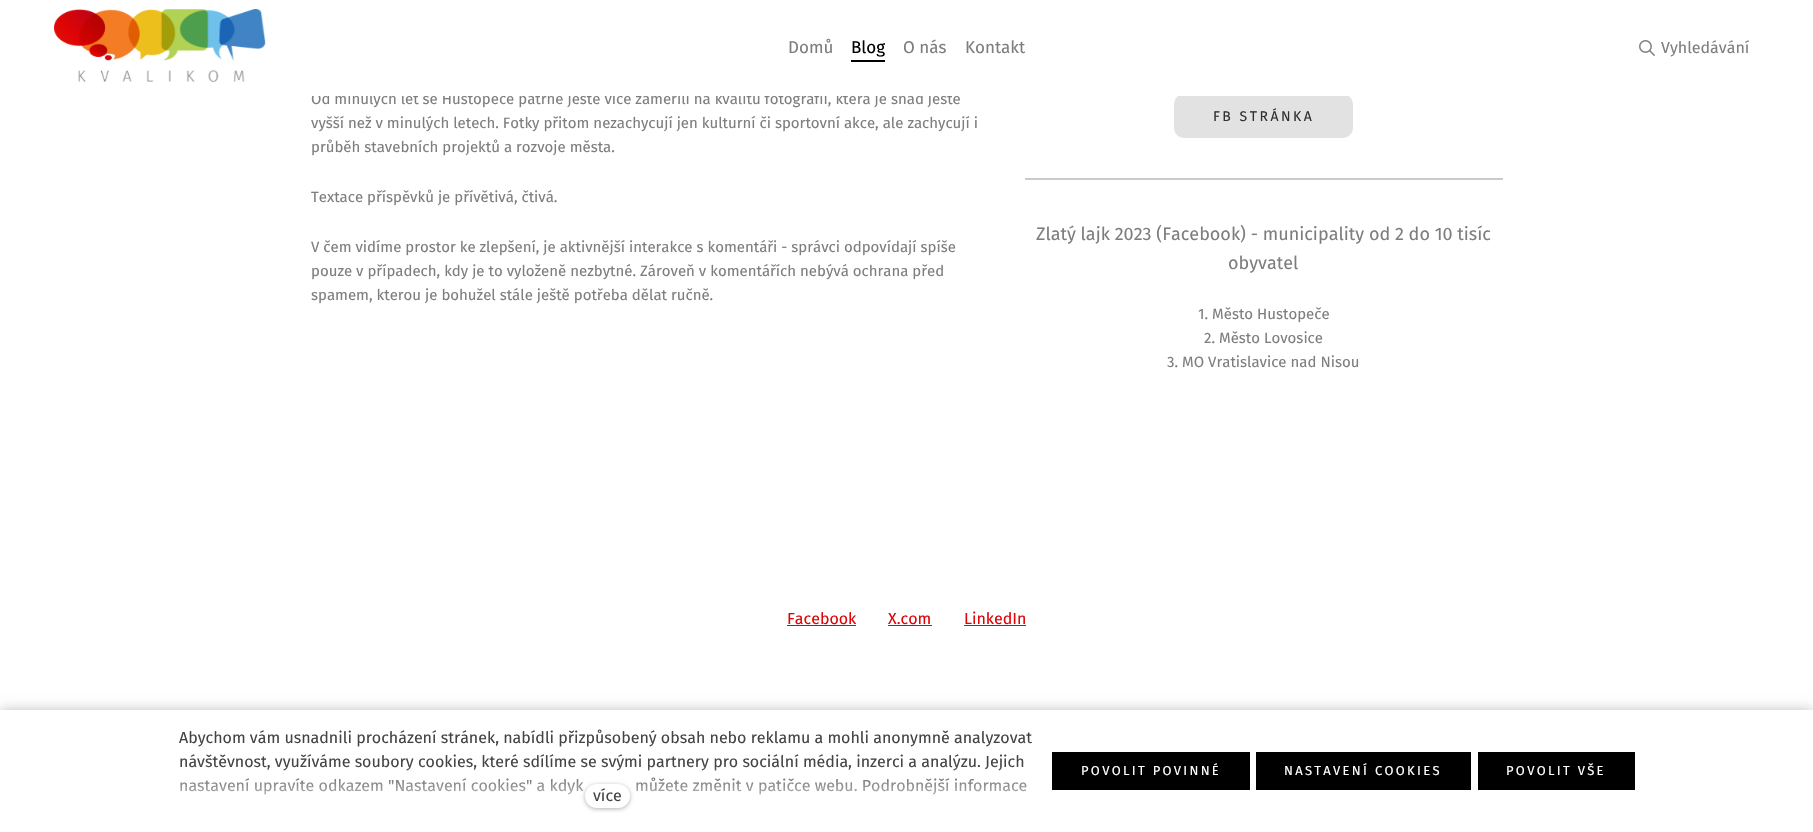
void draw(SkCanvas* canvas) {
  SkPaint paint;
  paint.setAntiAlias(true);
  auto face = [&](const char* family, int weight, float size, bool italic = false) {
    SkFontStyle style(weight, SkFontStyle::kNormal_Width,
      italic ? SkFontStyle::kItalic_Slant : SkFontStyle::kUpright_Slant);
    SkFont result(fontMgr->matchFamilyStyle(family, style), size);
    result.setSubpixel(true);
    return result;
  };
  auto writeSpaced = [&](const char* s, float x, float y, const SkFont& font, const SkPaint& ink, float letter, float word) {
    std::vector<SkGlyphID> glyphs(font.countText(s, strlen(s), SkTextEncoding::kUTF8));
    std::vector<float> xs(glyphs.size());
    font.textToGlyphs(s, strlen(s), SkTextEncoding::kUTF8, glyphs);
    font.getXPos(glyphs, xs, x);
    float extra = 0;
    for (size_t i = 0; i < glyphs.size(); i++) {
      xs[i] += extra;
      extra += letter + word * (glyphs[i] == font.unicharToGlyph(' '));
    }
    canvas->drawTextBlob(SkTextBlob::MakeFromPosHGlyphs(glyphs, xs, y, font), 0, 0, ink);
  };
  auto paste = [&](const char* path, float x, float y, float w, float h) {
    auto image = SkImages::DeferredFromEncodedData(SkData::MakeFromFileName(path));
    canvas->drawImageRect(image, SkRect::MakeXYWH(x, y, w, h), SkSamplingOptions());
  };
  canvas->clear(0xffffffff);
  paste("img/1.png", 54, 9, 212, 73);
  paint.setColor(0xff000000);
  canvas->drawRect(SkRect::MakeXYWH(851, 60, 34, 2), paint);
  paste("img/2.png", 1639, 40, 16, 16);
  paint.setColor(0xffe2e2e2);
  canvas->drawRoundRect(SkRect::MakeXYWH(1174, 94, 179, 44), 10, 10, paint);
  {
    const struct { float x, y, w, h; SkColor color; } items[] = {
      {1025, 178, 478, 2, 0xffcacaca},
      {787, 625, 69, 1, 0xffdf0408},
      {888, 625, 44, 1, 0xffdf0408},
      {964, 625, 62, 1, 0xffdf0408},
    };
    for (auto [x, y, w, h, color] : items) {
      paint.setColor(color);
      canvas->drawRect(SkRect::MakeXYWH(x, y, w, h), paint);
    }
  }
  paint.setColor(0x40000000);
  paint.setMaskFilter(SkMaskFilter::MakeBlur(kNormal_SkBlurStyle, 6));
  canvas->drawRect(SkRect::MakeXYWH(0, 710, 1813, 122), paint);
  paint.setMaskFilter(nullptr);
  {
    const struct { float x, y, w, h; SkColor color; } items[] = {
      {0, 710, 1813, 122, 0xffffffff},
      {1052, 752, 198, 38, 0xff000000},
      {1256, 752, 215, 38, 0xff000000},
      {1478, 752, 157, 38, 0xff000000},
    };
    for (auto [x, y, w, h, color] : items) {
      paint.setColor(color);
      canvas->drawRect(SkRect::MakeXYWH(x, y, w, h), paint);
    }
  }
  auto f0 = face("Fira Sans", 400, 17);
  paint.setColor(0xff7e7e7e);
  canvas->drawString("Domů", 788, 53, f0, paint);
  paint.setColor(0xff000000);
  canvas->drawString("Blog", 851, 53, f0, paint);
  paint.setColor(0xff7e7e7e);
  canvas->drawString("O nás", 903, 53, f0, paint);
  canvas->drawString("Kontakt", 965, 53, f0, paint);
  auto f1 = face("Fira Sans", 400, 16);
  canvas->drawString("Vyhledávání", 1661, 53, f1, paint);
  auto f2 = face("Fira Sans", 400, 15);
  canvas->drawString("Od minulých let se Hustopeče patrně ještě více zaměřili na kvalitu fotografií, která je snad ještě", 311, 104, f2, paint);
  paint.setColor(0xffffffff);
  canvas->drawRect(SkRect::MakeXYWH(312, 92, 1037, 4), paint);
  paint.setColor(0xff7e7e7e);
  {
    const struct { const char* s; float x, y; } items[] = {
      {"vyšší než v minulých letech. Fotky přitom nezachycují jen kulturní či sportovní akce, ale zachycují i", 311, 128},
      {"průběh stavebních projektů a rozvoje města.", 311, 152},
      {"Textace příspěvků je přívětivá, čtivá.", 311, 202},
      {"V čem vidíme prostor ke zlepšení, je aktivnější interakce s komentáři - správci odpovídají spíše", 311, 252},
      {"pouze v případech, kdy je to vyloženě nezbytné. Zároveň v komentářích nebývá ochrana před", 311, 276},
      {"spamem, kterou je bohužel stále ještě potřeba dělat ručně.", 311, 300},
    };
    for (auto [s, x, y] : items) {
      canvas->drawString(s, x, y, f2, paint);
    }
  }
  auto f3 = face("Fira Sans", 400, 14);
  paint.setColor(0xff313131);
  writeSpaced("FB STRÁNKA", 1213, 121, f3, paint, 2.5f, 0);
  auto f4 = face("Fira Sans", 400, 18);
  paint.setColor(0xff7e7e7e);
  canvas->drawString("Zlatý lajk 2023 (Facebook) - municipality od 2 do 10 tisíc", 1036, 240, f4, paint);
  canvas->drawString("obyvatel", 1228, 269, f4, paint);
  {
    const struct { const char* s; float x, y; } items[] = {
      {"1. Město Hustopeče", 1198, 319},
      {"2. Město Lovosice", 1204, 343},
      {"3. MO Vratislavice nad Nisou", 1167, 367},
    };
    for (auto [s, x, y] : items) {
      canvas->drawString(s, x, y, f2, paint);
    }
  }
  paint.setColor(0xffdf0408);
  {
    const struct { const char* s; float x, y; } items[] = {
      {"Facebook", 787, 624},
      {"X.com", 888, 624},
      {"LinkedIn", 964, 624},
    };
    for (auto [s, x, y] : items) {
      canvas->drawString(s, x, y, f1, paint);
    }
  }
  paint.setColor(0xff444444);
  {
    const struct { const char* s; float x, y; } items[] = {
      {"Abychom vám usnadnili procházení stránek, nabídli přizpůsobený obsah nebo reklamu a mohli anonymně analyzovat", 179, 743},
      {"návštěvnost, využíváme soubory cookies, které sdílíme se svými partnery pro sociální média, inzerci a analýzu. Jejich", 179, 767},
      {"nastavení upravíte odkazem \"Nastavení cookies\" a kdyk", 179, 791},
      {"můžete změnit v patičce webu. Podrobnější informace", 635, 791},
    };
    for (auto [s, x, y] : items) {
      canvas->drawString(s, x, y, f1, paint);
    }
  }
  {
    const SkColor colors[] = {0xffffffff, 0x00ffffff};
    const float stops[] = {0, 1};
    const SkPoint ends[] = {{608, 816}, {608, 765}};
    paint.setShader(SkGradientShader::MakeLinear(ends, colors, stops, 2, SkTileMode::kClamp));
    paint.setAlpha(255);
  }
  canvas->drawRect(SkRect::MakeXYWH(180, 766, 847, 29), paint);
  paint.setShader(nullptr);
  paint.setColor(0x4d000000);
  paint.setMaskFilter(SkMaskFilter::MakeBlur(kNormal_SkBlurStyle, 2));
  canvas->drawRoundRect(SkRect::MakeXYWH(585, 785, 45, 24), 12, 12, paint);
  paint.setMaskFilter(nullptr);
  paint.setColor(0xffffffff);
  canvas->drawRoundRect(SkRect::MakeXYWH(585, 784, 45, 24), 12, 12, paint);
  paint.setColor(0xff444444);
  canvas->drawString("více", 593, 801, f1, paint);
  auto f5 = face("Fira Sans", 400, 13);
  paint.setColor(0xffffffff);
  {
    const struct { const char* s; float x, y; } items[] = {
      {"POVOLIT POVINNÉ", 1081, 775},
      {"NASTAVENÍ COOKIES", 1284, 775},
      {"POVOLIT VŠE", 1506, 775},
    };
    for (auto [s, x, y] : items) {
      writeSpaced(s, x, y, f5, paint, 2.3f, 0);
    }
  }
}
